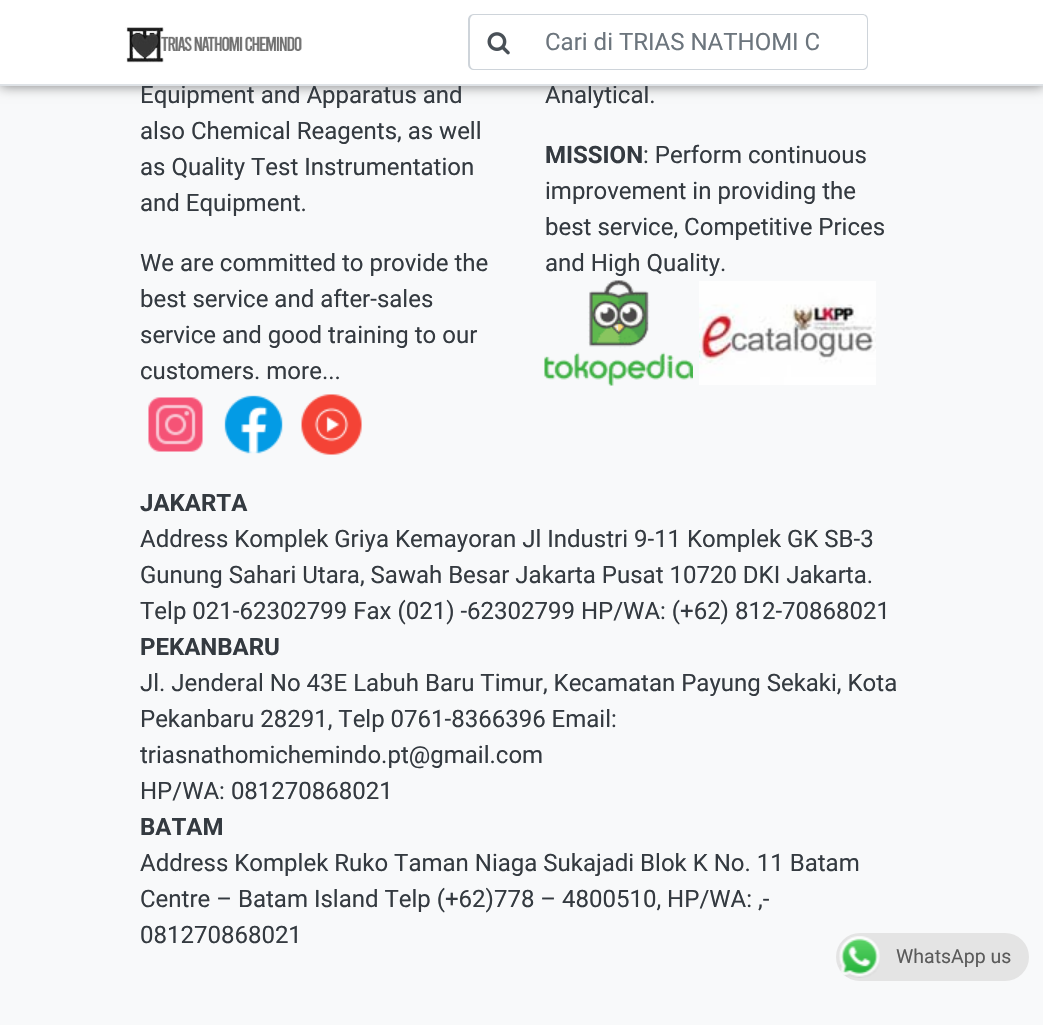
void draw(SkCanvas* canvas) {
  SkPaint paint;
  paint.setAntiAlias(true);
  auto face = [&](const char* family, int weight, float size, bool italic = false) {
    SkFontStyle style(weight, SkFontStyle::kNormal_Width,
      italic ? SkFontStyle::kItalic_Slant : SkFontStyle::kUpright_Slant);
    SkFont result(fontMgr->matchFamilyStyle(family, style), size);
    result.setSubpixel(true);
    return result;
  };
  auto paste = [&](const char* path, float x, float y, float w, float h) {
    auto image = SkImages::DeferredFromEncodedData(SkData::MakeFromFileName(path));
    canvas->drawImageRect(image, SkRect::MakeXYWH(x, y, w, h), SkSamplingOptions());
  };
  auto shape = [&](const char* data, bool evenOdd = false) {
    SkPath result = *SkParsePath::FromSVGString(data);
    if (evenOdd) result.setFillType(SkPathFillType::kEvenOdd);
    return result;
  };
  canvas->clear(0xfff8f9fa);
  paint.setColor(0x80000000);
  paint.setMaskFilter(SkMaskFilter::MakeBlur(kNormal_SkBlurStyle, 6));
  canvas->drawRect(SkRect::MakeXYWH(0, 0, 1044, 86), paint);
  paint.setMaskFilter(nullptr);
  paint.setColor(0xffffffff);
  canvas->drawRect(SkRect::MakeXYWH(0, 0, 1043, 84), paint);
  paste("img/1.png", 125, 27, 177, 36);
  paint.setColor(0xffced4da);
  canvas->drawPath(shape("M474 14H528V70H474C471 70 468 68 468 64V20C468 16 471 14 474 14ZM474 15H528V69H474C472 69 470 67 470 64V20C470 17 472 15 474 15Z", true), paint);
  paste("img/2.png", 487, 32, 23, 23);
  canvas->drawPath(shape("M526 14H862C866 14 868 16 868 20V64C868 68 866 70 862 70H526ZM526 15H862C865 15 867 17 867 20V64C867 67 865 69 862 69H526Z", true), paint);
  paste("img/3.png", 148, 397, 55, 55);
  paste("img/4.png", 224, 395, 59, 59);
  paste("img/5.png", 301, 394, 61, 61);
  paste("img/6.png", 544, 280, 149, 106);
  paste("img/7.png", 699, 281, 177, 104);
  paint.setColor(0xffe4e4e4);
  canvas->drawRoundRect(SkRect::MakeXYWH(836, 933, 193, 48), 24, 24, paint);
  paste("img/8.png", 839, 936, 41, 42);
  auto f0 = face("Roboto", 400, 24);
  paint.setColor(0xff6c757d);
  canvas->drawString("Cari di TRIAS NATHOMI C", 545, 50, f0, paint);
  paint.setColor(0xff343a40);
  {
    const struct { const char* s; float x, y; } items[] = {
      {"Equipment and Apparatus and", 140, 103},
      {"also Chemical Reagents, as well", 140, 139},
      {"as Quality Test Instrumentation", 140, 175},
      {"and Equipment.", 140, 211},
      {"We are committed to provide the", 140, 271},
      {"best service and after-sales", 140, 307},
      {"service and good training to our", 140, 343},
      {"customers. more...", 140, 379},
      {"Analytical.", 545, 103},
    };
    for (auto [s, x, y] : items) {
      canvas->drawString(s, x, y, f0, paint);
    }
  }
  paint.setColor(0xffdee2e6);
  canvas->drawRect(SkRect::MakeXYWH(0, 84, 1043, 2), paint);
  auto f1 = face("Roboto", 700, 24);
  paint.setColor(0xff343a40);
  canvas->drawString("MISSION", 545, 163, f1, paint);
  {
    const struct { const char* s; float x, y; } items[] = {
      {": Perform continuous", 643, 163},
      {"improvement in providing the", 545, 199},
      {"best service, Competitive Prices", 545, 235},
      {"and High Quality.", 545, 271},
    };
    for (auto [s, x, y] : items) {
      canvas->drawString(s, x, y, f0, paint);
    }
  }
  canvas->drawString("JAKARTA", 140, 511, f1, paint);
  {
    const struct { const char* s; float x, y; } items[] = {
      {"Address Komplek Griya Kemayoran Jl Industri 9-11 Komplek GK SB-3", 140, 547},
      {"Gunung Sahari Utara, Sawah Besar Jakarta Pusat 10720 DKI Jakarta.", 140, 583},
      {"Telp 021-62302799 Fax (021) -62302799 HP/WA: (+62) 812-70868021", 140, 619},
    };
    for (auto [s, x, y] : items) {
      canvas->drawString(s, x, y, f0, paint);
    }
  }
  canvas->drawString("PEKANBARU", 140, 655, f1, paint);
  {
    const struct { const char* s; float x, y; } items[] = {
      {"Jl. Jenderal No 43E Labuh Baru Timur, Kecamatan Payung Sekaki, Kota", 140, 691},
      {"Pekanbaru 28291, Telp 0761-8366396 Email:", 140, 727},
      {"triasnathomichemindo.pt@gmail.com", 140, 763},
      {"HP/WA: 081270868021", 140, 799},
    };
    for (auto [s, x, y] : items) {
      canvas->drawString(s, x, y, f0, paint);
    }
  }
  canvas->drawString("BATAM", 140, 835, f1, paint);
  {
    const struct { const char* s; float x, y; } items[] = {
      {"Address Komplek Ruko Taman Niaga Sukajadi Blok K No. 11 Batam", 140, 871},
      {"Centre – Batam Island Telp (+62)778 – 4800510, HP/WA: ,-", 140, 907},
      {"081270868021", 140, 943},
    };
    for (auto [s, x, y] : items) {
      canvas->drawString(s, x, y, f0, paint);
    }
  }
  auto f2 = face("Roboto", 400, 19.5f);
  paint.setColor(0xff5b5b5b);
  canvas->drawString("WhatsApp us", 896, 963, f2, paint);
}
